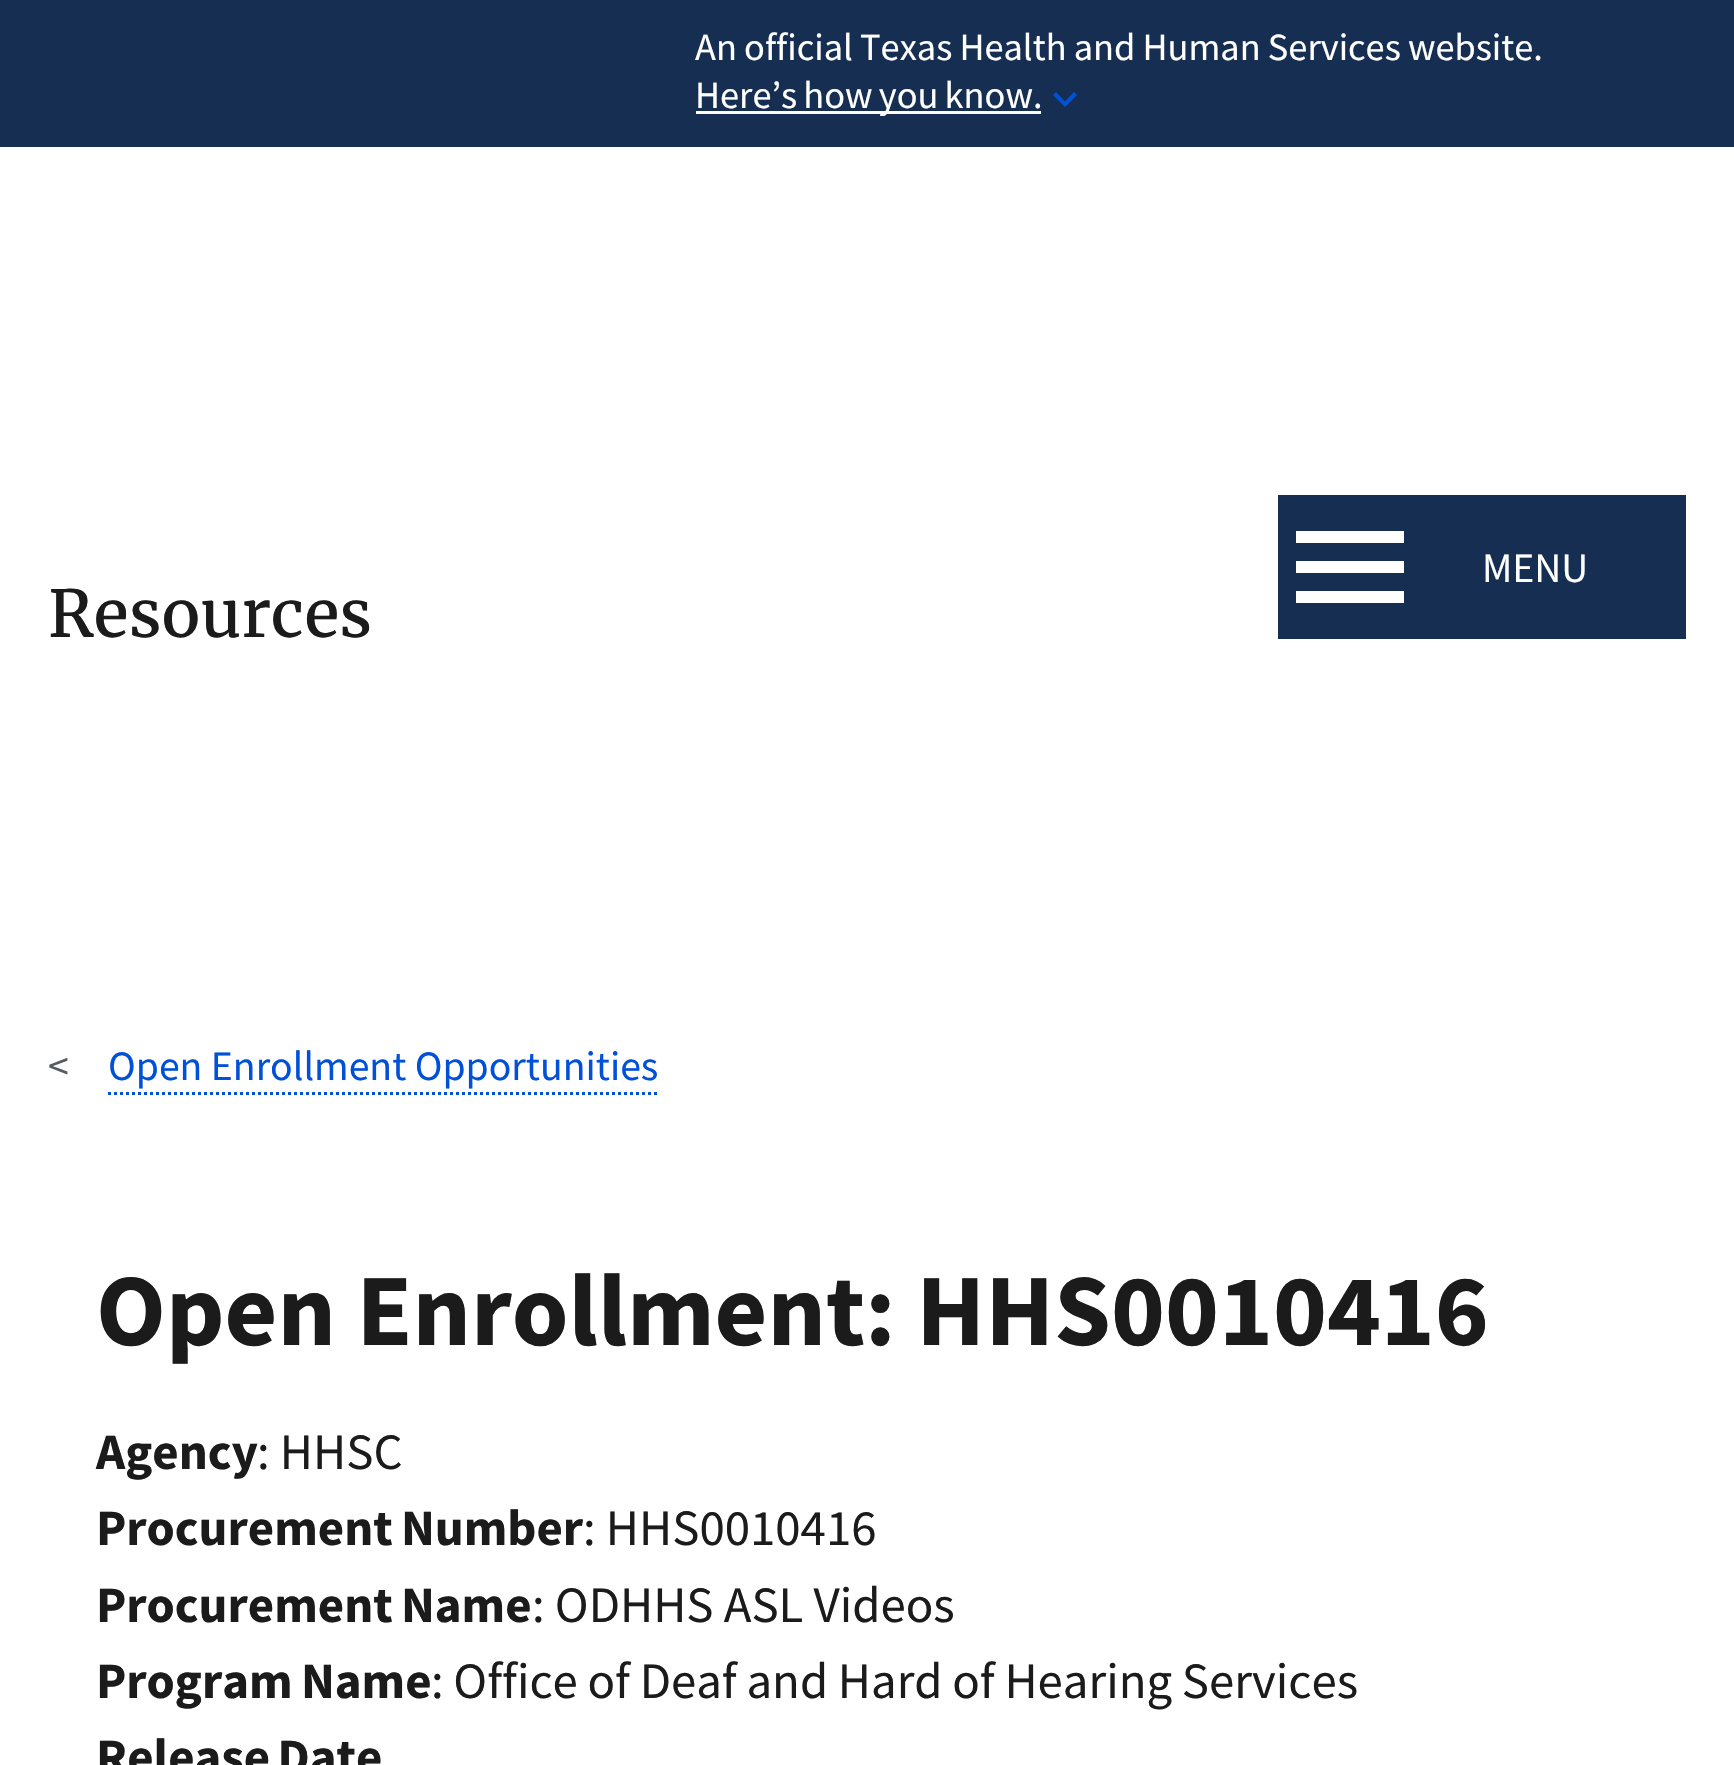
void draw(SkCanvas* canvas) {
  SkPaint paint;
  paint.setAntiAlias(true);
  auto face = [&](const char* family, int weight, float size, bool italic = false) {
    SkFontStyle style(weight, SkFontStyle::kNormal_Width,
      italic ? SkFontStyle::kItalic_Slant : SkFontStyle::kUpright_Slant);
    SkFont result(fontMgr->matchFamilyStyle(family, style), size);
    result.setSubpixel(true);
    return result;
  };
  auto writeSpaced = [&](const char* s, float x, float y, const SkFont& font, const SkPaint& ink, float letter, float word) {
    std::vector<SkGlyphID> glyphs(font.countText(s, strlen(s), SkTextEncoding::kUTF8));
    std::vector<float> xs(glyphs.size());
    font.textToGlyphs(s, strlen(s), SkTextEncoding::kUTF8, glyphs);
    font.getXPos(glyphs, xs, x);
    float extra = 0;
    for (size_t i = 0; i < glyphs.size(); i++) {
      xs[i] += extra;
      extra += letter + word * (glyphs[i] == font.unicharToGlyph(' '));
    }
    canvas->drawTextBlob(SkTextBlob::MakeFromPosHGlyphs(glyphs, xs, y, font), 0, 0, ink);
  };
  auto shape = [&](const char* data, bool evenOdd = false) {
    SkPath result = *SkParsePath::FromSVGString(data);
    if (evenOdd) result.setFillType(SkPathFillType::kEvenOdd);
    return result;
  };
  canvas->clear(0xffffffff);
  paint.setColor(0xff162e51);
  canvas->drawRect(SkRect::MakeXYWH(0, 0, 1734, 147), paint);
  paint.setColor(0xffffffff);
  canvas->drawRect(SkRect::MakeXYWH(696, 111, 345, 3), paint);
  paint.setColor(0xff0050d8);
  canvas->drawPath(shape("M1074 92L1065 101.5L1056 92L1053 95L1065 107L1077 95Z"), paint);
  paint.setColor(0xff162e51);
  canvas->drawRect(SkRect::MakeXYWH(1278, 495, 408, 144), paint);
  paint.setColor(0xffffffff);
  canvas->drawPath(shape("M1296 603H1404V591H1296ZM1296 573H1404V561H1296ZM1296 531V543H1404V531Z"), paint);
  paint.setStroke(true);
  paint.setStrokeWidth(3);
  paint.setColor(0xff0050d8);
  paint.setPathEffect(SkDashPathEffect::Make({{3, 3}}, 0));
  canvas->drawPath(shape("M108 1093.5H657"), paint);
  paint.setPathEffect(nullptr);
  auto f0 = face("Source Sans Pro", 400, 38.4f);
  paint.setStroke(false);
  paint.setColor(0xffffffff);
  writeSpaced("An official Texas Health and Human Services website.", 695, 60, f0, paint, 0, -0.5f);
  writeSpaced("Here’s how you know.", 695, 108, f0, paint, 0, -1.5f);
  auto f1 = face("Source Sans Pro", 400, 41.75f);
  canvas->drawString("MENU", 1482, 582, f1, paint);
  auto f2 = face("Merriweather", 400, 64.5f);
  paint.setColor(0xff1b1b1b);
  canvas->drawString("Resources", 48, 637, f2, paint);
  paint.setColor(0xff565c65);
  canvas->drawString("<", 48, 1080, f1, paint);
  paint.setColor(0xff0050d8);
  canvas->drawString("Open Enrollment Opportunities", 108, 1080, f1, paint);
  auto f3 = face("Source Sans Pro", 700, 102.25f);
  paint.setColor(0xff1b1b1b);
  canvas->drawString("Open Enrollment: HHS0010416", 96, 1345, f3, paint);
  auto f4 = face("Source Sans Pro", 700, 50.9f);
  canvas->drawString("Agency", 96, 1469, f4, paint);
  auto f5 = face("Source Sans Pro", 400, 50.9f);
  canvas->drawString(": HHSC", 257, 1469, f5, paint);
  writeSpaced("Procurement Number", 96, 1545, f4, paint, 0, -2);
  canvas->drawString(": HHS0010416", 583, 1545, f5, paint);
  writeSpaced("Procurement Name", 96, 1622, f4, paint, 0, -2);
  canvas->drawString(": ODHHS ASL Videos", 532, 1622, f5, paint);
  writeSpaced("Program Name", 96, 1698, f4, paint, 0, -2);
  writeSpaced(": Office of Deaf and Hard of Hearing Services", 431, 1698, f5, paint, 0, -0.5f);
  writeSpaced("Release Date", 96, 1774, f4, paint, 0, -3);
}
